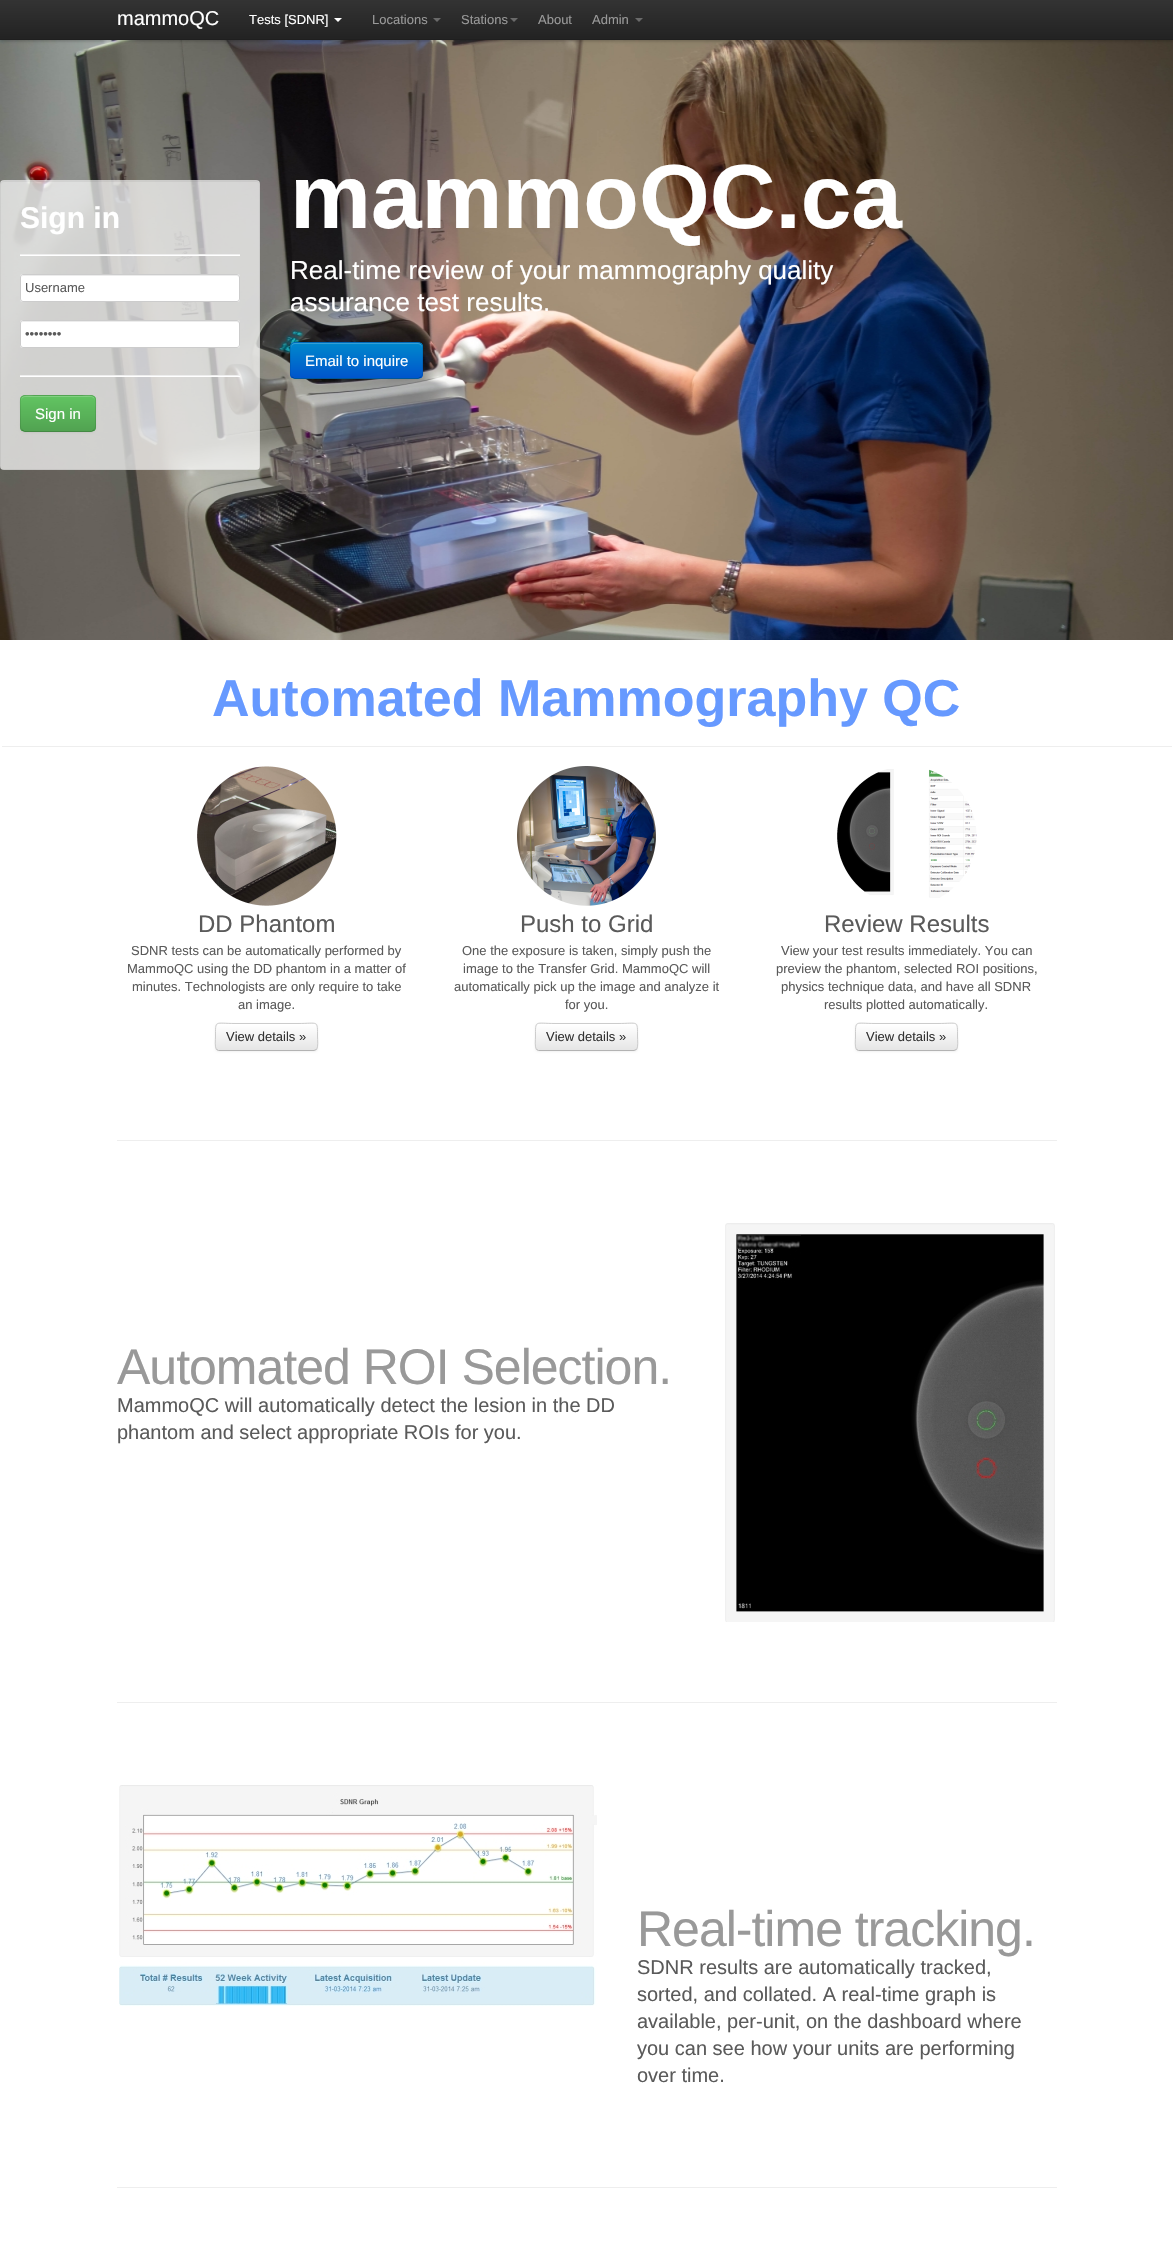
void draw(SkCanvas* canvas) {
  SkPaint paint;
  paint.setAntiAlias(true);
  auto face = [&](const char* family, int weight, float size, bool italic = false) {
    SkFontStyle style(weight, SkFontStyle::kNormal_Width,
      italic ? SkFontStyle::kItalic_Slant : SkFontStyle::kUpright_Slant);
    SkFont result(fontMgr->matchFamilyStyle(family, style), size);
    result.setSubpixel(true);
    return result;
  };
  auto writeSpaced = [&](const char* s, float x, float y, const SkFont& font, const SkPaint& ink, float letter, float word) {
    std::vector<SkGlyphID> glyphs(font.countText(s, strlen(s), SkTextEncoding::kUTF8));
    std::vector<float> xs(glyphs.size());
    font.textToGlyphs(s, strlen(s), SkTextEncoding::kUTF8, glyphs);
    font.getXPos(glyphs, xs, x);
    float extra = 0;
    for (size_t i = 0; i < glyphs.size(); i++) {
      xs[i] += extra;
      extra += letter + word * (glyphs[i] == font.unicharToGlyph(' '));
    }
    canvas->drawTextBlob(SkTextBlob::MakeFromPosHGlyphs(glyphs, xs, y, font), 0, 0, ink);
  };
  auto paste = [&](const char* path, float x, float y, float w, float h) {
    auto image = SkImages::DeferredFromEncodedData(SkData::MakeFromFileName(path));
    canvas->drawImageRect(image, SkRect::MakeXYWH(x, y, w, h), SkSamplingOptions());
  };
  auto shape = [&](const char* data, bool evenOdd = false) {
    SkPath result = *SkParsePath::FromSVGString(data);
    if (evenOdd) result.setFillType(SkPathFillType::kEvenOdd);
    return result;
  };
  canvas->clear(0xffffffff);
  paste("img/1.png", 0, 40, 1173, 600);
  paint.setColor(0x40000000);
  paint.setMaskFilter(SkMaskFilter::MakeBlur(kNormal_SkBlurStyle, 1.5f));
  canvas->drawRect(SkRect::MakeXYWH(0, 1, 1173, 40), paint);
  paint.setMaskFilter(nullptr);
  {
    const SkColor colors[] = {0xff333333, 0xff222222};
    const float stops[] = {0, 1};
    const SkPoint ends[] = {{587, 0}, {587, 40}};
    paint.setShader(SkGradientShader::MakeLinear(ends, colors, stops, 2, SkTileMode::kClamp));
    paint.setAlpha(255);
  }
  canvas->drawRect(SkRect::MakeXYWH(0, 0, 1173, 39), paint);
  paint.setShader(nullptr);
  paint.setColor(0xff1f1f1f);
  canvas->drawRect(SkRect::MakeXYWH(0, 39, 1173, 1), paint);
  paint.setColor(0xffffffff);
  canvas->drawPath(shape("M334 18H342L338 22Z"), paint);
  paint.setColor(0xff6a6a6a);
  canvas->drawPath(shape("M433 18H441L437 22Z"), paint);
  canvas->drawPath(shape("M510 18H518L514 22Z"), paint);
  canvas->drawPath(shape("M635 18H643L639 22Z"), paint);
  paint.setColor(0xb3ffffff);
  canvas->drawRoundRect(SkRect::MakeXYWH(0, 180, 260, 290), 4, 4, paint);
  paint.setColor(0x0d000000);
  canvas->drawPath(shape("M4 182H257L259 183V185V184C259 182 258 181 256 181H4C2 181 1 182 1 184V185C1 183 2 182 4 182Z"), paint);
  paint.setStroke(true);
  paint.setStrokeWidth(1);
  canvas->drawRect(SkRect::MakeXYWH(0.5f, 180.5f, 259, 289), paint);
  paint.setStroke(false);
  paint.setColor(0xffeeeeee);
  canvas->drawRect(SkRect::MakeXYWH(20, 254, 220, 1), paint);
  paint.setColor(0xffffffff);
  canvas->drawRect(SkRect::MakeXYWH(20, 255, 220, 1), paint);
  canvas->drawRoundRect(SkRect::MakeXYWH(20, 274, 220, 28), 3, 3, paint);
  paint.setColor(0xffececec);
  canvas->drawPath(shape("M23 276H237C238 276 239 277 239 278C239 277 239 275 237 275H23L22 276L21 278C21 277 22 276 23 276Z"), paint);
  paint.setStroke(true);
  paint.setColor(0xffcccccc);
  canvas->drawRoundRect(SkRect::MakeXYWH(20.5f, 274.5f, 219, 27), 2.5f, 2.5f, paint);
  paint.setStroke(false);
  paint.setColor(0xffffffff);
  canvas->drawRoundRect(SkRect::MakeXYWH(20, 320, 220, 28), 3, 3, paint);
  paint.setColor(0xffececec);
  canvas->drawPath(shape("M23 322H237C238 322 239 323 239 324C239 323 239 321 237 321H23L22 322L21 324C21 323 22 322 23 322Z"), paint);
  paint.setStroke(true);
  paint.setColor(0xffcccccc);
  canvas->drawRoundRect(SkRect::MakeXYWH(20.5f, 320.5f, 219, 27), 2.5f, 2.5f, paint);
  paint.setStroke(false);
  paint.setColor(0xffeeeeee);
  canvas->drawRect(SkRect::MakeXYWH(20, 375, 220, 1), paint);
  paint.setColor(0xffffffff);
  canvas->drawRect(SkRect::MakeXYWH(20, 376, 220, 1), paint);
  paint.setColor(0x0d000000);
  paint.setMaskFilter(SkMaskFilter::MakeBlur(kNormal_SkBlurStyle, 1));
  canvas->drawRoundRect(SkRect::MakeXYWH(20, 396, 76, 37), 5, 5, paint);
  paint.setMaskFilter(nullptr);
  paint.setColor(0xff5bb75b);
  canvas->drawRoundRect(SkRect::MakeXYWH(20, 395, 76, 37), 5, 5, paint);
  canvas->save();
  canvas->clipPath(shape("M25 395H91C94 395 96 397 96 400V427C96 430 94 432 91 432H25C22 432 20 430 20 427V400C20 397 22 395 25 395Z"), true);
  {
    const SkColor colors[] = {0xff62c462, 0xff51a351};
    const float stops[] = {0, 1};
    const SkPoint ends[] = {{58, 396}, {58, 431}};
    paint.setShader(SkGradientShader::MakeLinear(ends, colors, stops, 2, SkTileMode::kClamp));
    paint.setAlpha(255);
  }
  canvas->drawRect(SkRect::MakeXYWH(20, 396, 76, 35), paint);
  canvas->restore();
  paint.setShader(nullptr);
  paint.setColor(0x33ffffff);
  canvas->drawPath(shape("M25 397H91C93 397 95 399 95 401C95 393 85 396 80 396H36C31 396 21 393 21 401C21 399 23 397 25 397Z"), paint);
  paint.setStroke(true);
  paint.setColor(0x40000000);
  canvas->drawPath(shape("M94 430L91.5 431.5H24.5L22 430"), paint);
  paint.setColor(0x1a000000);
  canvas->drawPath(shape("M22 430C20 428 20.5 425 20.5 422.5V413.5C20.5 394.5 17.5 395.5 36 395.5H80C98.5 395.5 95.5 394.5 95.5 413.5V422.5C95.5 425 96 428 94 430"), paint);
  paint.setStroke(false);
  paint.setColor(0x0d000000);
  paint.setMaskFilter(SkMaskFilter::MakeBlur(kNormal_SkBlurStyle, 1));
  canvas->drawRoundRect(SkRect::MakeXYWH(290, 343, 133, 37), 5, 5, paint);
  paint.setMaskFilter(nullptr);
  paint.setColor(0xff0074cc);
  canvas->drawRoundRect(SkRect::MakeXYWH(290, 342, 133, 37), 5, 5, paint);
  canvas->save();
  canvas->clipPath(shape("M295 342H418C421 342 423 344 423 347V374C423 377 421 379 418 379H295C292 379 290 377 290 374V347C290 344 292 342 295 342Z"), true);
  {
    const SkColor colors[] = {0xff0088cc, 0xff0055cc};
    const float stops[] = {0, 1};
    const SkPoint ends[] = {{357, 343}, {357, 378}};
    paint.setShader(SkGradientShader::MakeLinear(ends, colors, stops, 2, SkTileMode::kClamp));
    paint.setAlpha(255);
  }
  canvas->drawRect(SkRect::MakeXYWH(290, 343, 133, 35), paint);
  canvas->restore();
  paint.setShader(nullptr);
  paint.setColor(0x33ffffff);
  canvas->drawPath(shape("M295 344H418C420 344 422 346 422 348V347C422 345 420 343 418 343H295C293 343 291 345 291 347V348C291 346 293 344 295 344Z"), paint);
  paint.setStroke(true);
  paint.setColor(0x40000000);
  canvas->drawPath(shape("M421 377L418 378.5H294.5L292 377"), paint);
  paint.setColor(0x1a000000);
  canvas->drawPath(shape("M292 377C289 374.5 290.5 368 290.5 365C290.5 338 286.5 342.5 315.5 342.5H397.5C426.5 342.5 422.5 338 422.5 365C422.5 368 424 374.5 421 377"), paint);
  paint.setStroke(false);
  paint.setColor(0xffeeeeee);
  canvas->drawRect(SkRect::MakeXYWH(2, 746, 1170, 1), paint);
  paste("img/2.png", 197, 766, 140, 140);
  paint.setColor(0x0d000000);
  paint.setMaskFilter(SkMaskFilter::MakeBlur(kNormal_SkBlurStyle, 1));
  canvas->drawRoundRect(SkRect::MakeXYWH(215, 1024, 103, 28), 4, 4, paint);
  paint.setMaskFilter(nullptr);
  paint.setColor(0xfff5f5f5);
  canvas->drawRoundRect(SkRect::MakeXYWH(215, 1023, 103, 28), 4, 4, paint);
  canvas->save();
  canvas->clipPath(shape("M219 1023H314C316 1023 318 1025 318 1027V1047C318 1049 316 1051 314 1051H219C217 1051 215 1049 215 1047V1027C215 1025 217 1023 219 1023Z"), true);
  {
    const SkColor colors[] = {0xffffffff, 0xffe6e6e6};
    const float stops[] = {0, 1};
    const SkPoint ends[] = {{267, 1024}, {267, 1050}};
    paint.setShader(SkGradientShader::MakeLinear(ends, colors, stops, 2, SkTileMode::kClamp));
    paint.setAlpha(255);
  }
  canvas->drawRect(SkRect::MakeXYWH(215, 1024, 103, 26), paint);
  canvas->restore();
  paint.setStroke(true);
  paint.setShader(nullptr);
  paint.setColor(0xffb3b3b3);
  canvas->drawPath(shape("M316.5 1049.5L314 1050.5H218.5L216.5 1049.5"), paint);
  paint.setColor(0xffcccccc);
  canvas->drawPath(shape("M216.5 1049.5C214.5 1047 215.5 1039.5 215.5 1037C215.5 1019.5 214.5 1023.5 235 1023.5H298C318.5 1023.5 317.5 1019.5 317.5 1037C317.5 1039.5 318.5 1047 316.5 1049.5"), paint);
  paste("img/3.png", 517, 766, 139, 140);
  paint.setStroke(false);
  paint.setColor(0x0d000000);
  paint.setMaskFilter(SkMaskFilter::MakeBlur(kNormal_SkBlurStyle, 1));
  canvas->drawRoundRect(SkRect::MakeXYWH(535, 1024, 103, 28), 4, 4, paint);
  paint.setMaskFilter(nullptr);
  paint.setColor(0xfff5f5f5);
  canvas->drawRoundRect(SkRect::MakeXYWH(535, 1023, 103, 28), 4, 4, paint);
  canvas->save();
  canvas->clipPath(shape("M539 1023H634C636 1023 638 1025 638 1027V1047C638 1049 636 1051 634 1051H539C537 1051 535 1049 535 1047V1027C535 1025 537 1023 539 1023Z"), true);
  {
    const SkColor colors[] = {0xffffffff, 0xffe6e6e6};
    const float stops[] = {0, 1};
    const SkPoint ends[] = {{587, 1024}, {587, 1050}};
    paint.setShader(SkGradientShader::MakeLinear(ends, colors, stops, 2, SkTileMode::kClamp));
    paint.setAlpha(255);
  }
  canvas->drawRect(SkRect::MakeXYWH(535, 1024, 103, 26), paint);
  canvas->restore();
  paint.setStroke(true);
  paint.setShader(nullptr);
  paint.setColor(0xffb3b3b3);
  canvas->drawPath(shape("M636.5 1049.5L634 1050.5H538.5L536.5 1049.5"), paint);
  paint.setColor(0xffcccccc);
  canvas->drawPath(shape("M536.5 1049.5C534.5 1047 535.5 1039.5 535.5 1037C535.5 1019.5 534.5 1023.5 555 1023.5H618C638.5 1023.5 637.5 1019.5 637.5 1037C637.5 1039.5 638.5 1047 636.5 1049.5"), paint);
  paste("img/4.png", 837, 769, 140, 129);
  paint.setStroke(false);
  paint.setColor(0x0d000000);
  paint.setMaskFilter(SkMaskFilter::MakeBlur(kNormal_SkBlurStyle, 1));
  canvas->drawRoundRect(SkRect::MakeXYWH(855, 1024, 103, 28), 4, 4, paint);
  paint.setMaskFilter(nullptr);
  paint.setColor(0xfff5f5f5);
  canvas->drawRoundRect(SkRect::MakeXYWH(855, 1023, 103, 28), 4, 4, paint);
  canvas->save();
  canvas->clipPath(shape("M859 1023H954C956 1023 958 1025 958 1027V1047C958 1049 956 1051 954 1051H859C857 1051 855 1049 855 1047V1027C855 1025 857 1023 859 1023Z"), true);
  {
    const SkColor colors[] = {0xffffffff, 0xffe6e6e6};
    const float stops[] = {0, 1};
    const SkPoint ends[] = {{907, 1024}, {907, 1050}};
    paint.setShader(SkGradientShader::MakeLinear(ends, colors, stops, 2, SkTileMode::kClamp));
    paint.setAlpha(255);
  }
  canvas->drawRect(SkRect::MakeXYWH(855, 1024, 103, 26), paint);
  canvas->restore();
  paint.setStroke(true);
  paint.setShader(nullptr);
  paint.setColor(0xffb3b3b3);
  canvas->drawPath(shape("M956.5 1049.5L954 1050.5H858.5L856.5 1049.5"), paint);
  paint.setColor(0xffcccccc);
  canvas->drawPath(shape("M856.5 1049.5C854.5 1047 855.5 1039.5 855.5 1037C855.5 1019.5 854.5 1023.5 875 1023.5H938C958.5 1023.5 957.5 1019.5 957.5 1037C957.5 1039.5 958.5 1047 956.5 1049.5"), paint);
  paint.setStroke(false);
  paint.setColor(0xffeeeeee);
  canvas->drawRect(SkRect::MakeXYWH(117, 1140, 940, 1), paint);
  paste("img/5.png", 725, 1223, 330, 399);
  canvas->drawRect(SkRect::MakeXYWH(117, 1702, 940, 1), paint);
  paste("img/6.png", 119, 1785, 478, 221);
  canvas->drawRect(SkRect::MakeXYWH(117, 2187, 940, 1), paint);
  auto f0 = face("Liberation Sans", 400, 20);
  paint.setColor(0xffffffff);
  canvas->drawString("mammoQC", 117, 25, f0, paint);
  auto f1 = face("Liberation Sans", 400, 13);
  canvas->drawString("Tests [SDNR]", 249, 24, f1, paint);
  paint.setColor(0xff999999);
  {
    const struct { const char* s; float x, y; } items[] = {
      {"Locations", 372, 24},
      {"Stations", 461, 24},
      {"About", 538, 24},
      {"Admin", 592, 24},
    };
    for (auto [s, x, y] : items) {
      canvas->drawString(s, x, y, f1, paint);
    }
  }
  auto f2 = face("Liberation Sans", 700, 30);
  paint.setColor(0xffffffff);
  canvas->drawString("Sign in", 20, 228, f2, paint);
  paint.setColor(0xff5a5a5a);
  canvas->drawString("Username", 25, 292, f1, paint);
  canvas->drawString("••••••••", 25, 338, f1, paint);
  auto f3 = face("Liberation Sans", 400, 15);
  paint.setColor(0xffffffff);
  canvas->drawString("Sign in", 35, 419, f3, paint);
  auto f4 = face("Liberation Sans", 700, 91);
  canvas->drawString("mammoQC.ca", 290, 228, f4, paint);
  auto f5 = face("Liberation Sans", 400, 26);
  canvas->drawString("Real-time review of your mammography quality", 290, 279, f5, paint);
  canvas->drawString("assurance test results.", 290, 311, f5, paint);
  canvas->drawString("Email to inquire", 305, 366, f3, paint);
  auto f6 = face("Liberation Sans", 700, 52);
  paint.setColor(0xff6699ff);
  canvas->drawString("Automated Mammography QC", 212, 716, f6, paint);
  auto f7 = face("Liberation Sans", 400, 24);
  paint.setColor(0xff5a5a5a);
  canvas->drawString("DD Phantom", 198, 932, f7, paint);
  {
    const struct { const char* s; float x, y; } items[] = {
      {"SDNR tests can be automatically performed by", 131, 955},
      {"MammoQC using the DD phantom in a matter of", 127, 973},
      {"minutes. Technologists are only require to take", 132, 991},
      {"an image.", 238, 1009},
    };
    for (auto [s, x, y] : items) {
      canvas->drawString(s, x, y, f1, paint);
    }
  }
  paint.setColor(0xff333333);
  canvas->drawString("View details »", 226, 1041, f1, paint);
  paint.setColor(0xff5a5a5a);
  canvas->drawString("Push to Grid", 520, 932, f7, paint);
  {
    const struct { const char* s; float x, y; } items[] = {
      {"One the exposure is taken, simply push the", 462, 955},
      {"image to the Transfer Grid. MammoQC will", 463, 973},
      {"automatically pick up the image and analyze it", 454, 991},
      {"for you.", 565, 1009},
    };
    for (auto [s, x, y] : items) {
      canvas->drawString(s, x, y, f1, paint);
    }
  }
  paint.setColor(0xff333333);
  canvas->drawString("View details »", 546, 1041, f1, paint);
  paint.setColor(0xff5a5a5a);
  canvas->drawString("Review Results", 824, 932, f7, paint);
  {
    const struct { const char* s; float x, y; } items[] = {
      {"View your test results immediately. You can", 781, 955},
      {"preview the phantom, selected ROI positions,", 776, 973},
      {"physics technique data, and have all SDNR", 781, 991},
      {"results plotted automatically.", 824, 1009},
    };
    for (auto [s, x, y] : items) {
      canvas->drawString(s, x, y, f1, paint);
    }
  }
  paint.setColor(0xff333333);
  canvas->drawString("View details »", 866, 1041, f1, paint);
  auto f8 = face("Liberation Sans", 400, 50);
  paint.setColor(0xff999999);
  writeSpaced("Automated ROI Selection.", 117, 1384, f8, paint, -1, 0);
  paint.setColor(0xff5a5a5a);
  canvas->drawString("MammoQC will automatically detect the lesion in the DD", 117, 1412, f0, paint);
  canvas->drawString("phantom and select appropriate ROIs for you.", 117, 1439, f0, paint);
  paint.setColor(0xff999999);
  writeSpaced("Real-time tracking.", 637, 1946, f8, paint, -1, 0);
  paint.setColor(0xff5a5a5a);
  {
    const struct { const char* s; float x, y; } items[] = {
      {"SDNR results are automatically tracked,", 637, 1974},
      {"sorted, and collated. A real-time graph is", 637, 2001},
      {"available, per-unit, on the dashboard where", 637, 2028},
      {"you can see how your units are performing", 637, 2055},
      {"over time.", 637, 2082},
    };
    for (auto [s, x, y] : items) {
      canvas->drawString(s, x, y, f0, paint);
    }
  }
}
